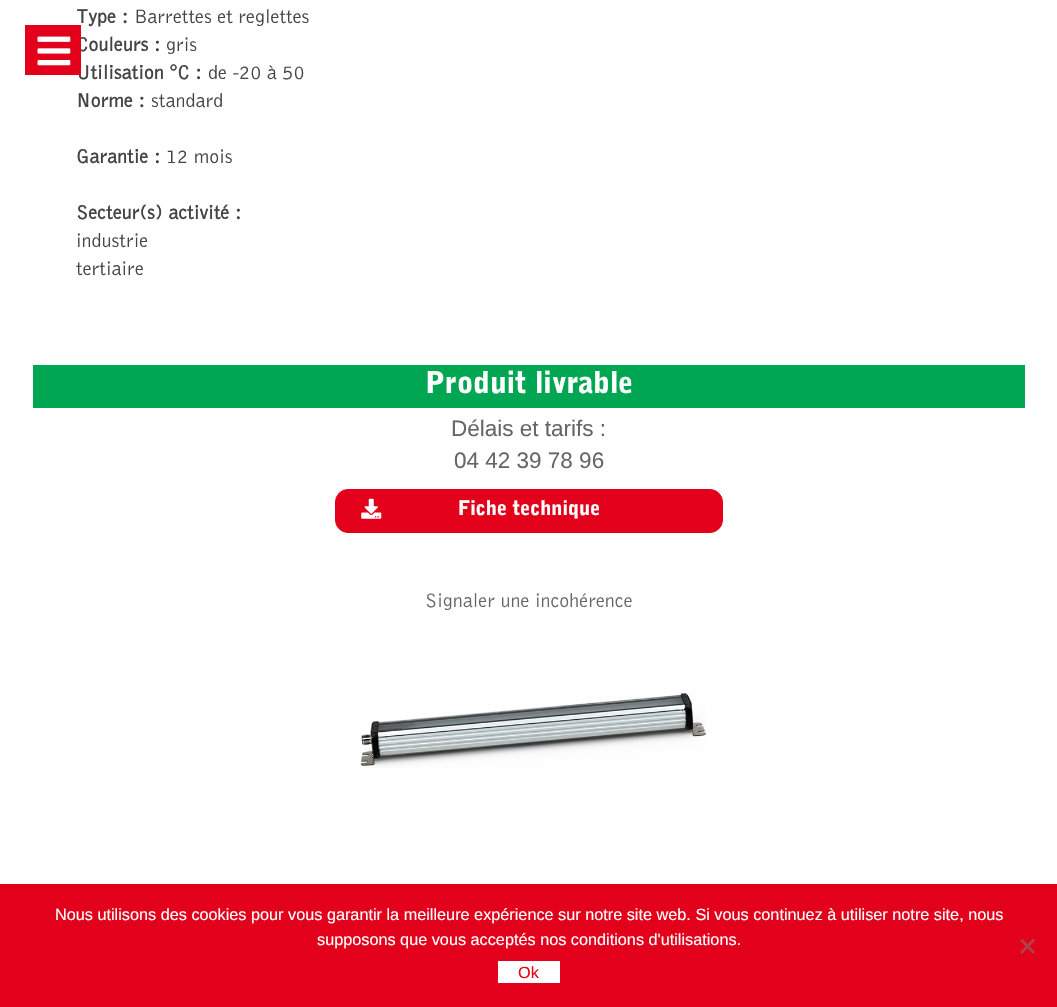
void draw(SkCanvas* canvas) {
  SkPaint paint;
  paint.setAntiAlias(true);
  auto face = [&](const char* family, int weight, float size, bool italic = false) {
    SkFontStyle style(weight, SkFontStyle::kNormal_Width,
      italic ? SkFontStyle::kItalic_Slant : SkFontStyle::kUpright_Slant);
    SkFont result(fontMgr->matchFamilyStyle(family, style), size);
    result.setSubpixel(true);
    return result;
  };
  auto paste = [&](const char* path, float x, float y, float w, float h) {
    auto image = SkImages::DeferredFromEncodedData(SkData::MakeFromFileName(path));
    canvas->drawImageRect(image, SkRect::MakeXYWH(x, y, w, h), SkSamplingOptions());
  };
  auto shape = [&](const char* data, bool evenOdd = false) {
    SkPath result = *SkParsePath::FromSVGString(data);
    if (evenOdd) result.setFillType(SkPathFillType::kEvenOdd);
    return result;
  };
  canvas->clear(0xffffffff);
  paint.setColor(0xff00a651);
  canvas->drawRect(SkRect::MakeXYWH(33, 365, 992, 43), paint);
  paint.setColor(0xffe2001a);
  canvas->drawRoundRect(SkRect::MakeXYWH(335.5f, 489.5f, 387, 43), 12.5f, 12.5f, paint);
  paint.setStroke(true);
  paint.setStrokeWidth(1);
  canvas->drawRoundRect(SkRect::MakeXYWH(335.5f, 489.5f, 387, 43), 12.5f, 12.5f, paint);
  paste("img/2.png", 361, 498, 21, 21);
  paste("img/3.png", 360, 693, 347, 75);
  paint.setStroke(false);
  canvas->drawRect(SkRect::MakeXYWH(0, 884, 1057, 123), paint);
  paint.setColor(0xffb1404d);
  canvas->drawPath(shape("M1033 938.5L1035 940.5L1022 954L1020 952Z"), paint);
  canvas->drawPath(shape("M1020 940.5L1022 938.5L1035 952L1033 954Z"), paint);
  paint.setColor(0xffffffff);
  canvas->drawRect(SkRect::MakeXYWH(498, 961, 62, 22), paint);
  auto f0 = face("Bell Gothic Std", 700, 20);
  paint.setColor(0xff444444);
  canvas->drawString("Type :", 76, 23, f0, paint);
  auto f1 = face("Bell Gothic Std", 300, 20);
  canvas->drawString("Barrettes et reglettes", 134, 23, f1, paint);
  canvas->drawString("Couleurs :", 76, 51, f0, paint);
  canvas->drawString("gris", 166, 51, f1, paint);
  canvas->drawString("Utilisation °C :", 76, 79, f0, paint);
  paint.setStroke(true);
  paint.setColor(0xffe2001a);
  canvas->drawRect(SkRect::MakeXYWH(25.5f, 25.5f, 55, 49), paint);
  paint.setStroke(false);
  canvas->drawRect(SkRect::MakeXYWH(26, 26, 54, 48), paint);
  paste("img/1.png", 37, 36, 34, 30);
  paint.setColor(0xff444444);
  canvas->drawString("de -20 à 50", 208, 79, f1, paint);
  canvas->drawString("Norme :", 76, 107, f0, paint);
  canvas->drawString("standard", 151, 107, f1, paint);
  canvas->drawString("Garantie :", 76, 163, f0, paint);
  canvas->drawString("12 mois", 166, 163, f1, paint);
  canvas->drawString("Secteur(s) activité :", 76, 219, f0, paint);
  canvas->drawString("industrie", 76, 247, f1, paint);
  canvas->drawString("tertiaire", 76, 275, f1, paint);
  auto f2 = face("Bell Gothic Std", 900, 30);
  paint.setColor(0xffffffff);
  canvas->drawString("Produit livrable", 425, 393, f2, paint);
  auto f3 = face("Liberation Sans", 400, 22.5f);
  paint.setColor(0xff666666);
  canvas->drawString("Délais et tarifs :", 451, 436, f3, paint);
  canvas->drawString("04 42 39 78 96", 454, 468, f3, paint);
  auto f4 = face("Bell Gothic Std", 900, 20);
  paint.setColor(0xffffffff);
  canvas->drawString("Fiche technique", 458, 515, f4, paint);
  paint.setColor(0xff666666);
  canvas->drawString("Signaler une incohérence", 425, 607, f1, paint);
  auto f5 = face("Liberation Sans", 400, 16.25f);
  paint.setColor(0xffffffff);
  canvas->drawString("Nous utilisons des cookies pour vous garantir la meilleure expérience sur notre site web. Si vous continuez à utiliser notre site, nous", 55, 920, f5, paint);
  canvas->drawString("supposons que vous acceptés nos conditions d'utilisations.", 317, 945, f5, paint);
  paint.setColor(0xffe2001a);
  canvas->drawString("Ok", 518, 978, f5, paint);
}
